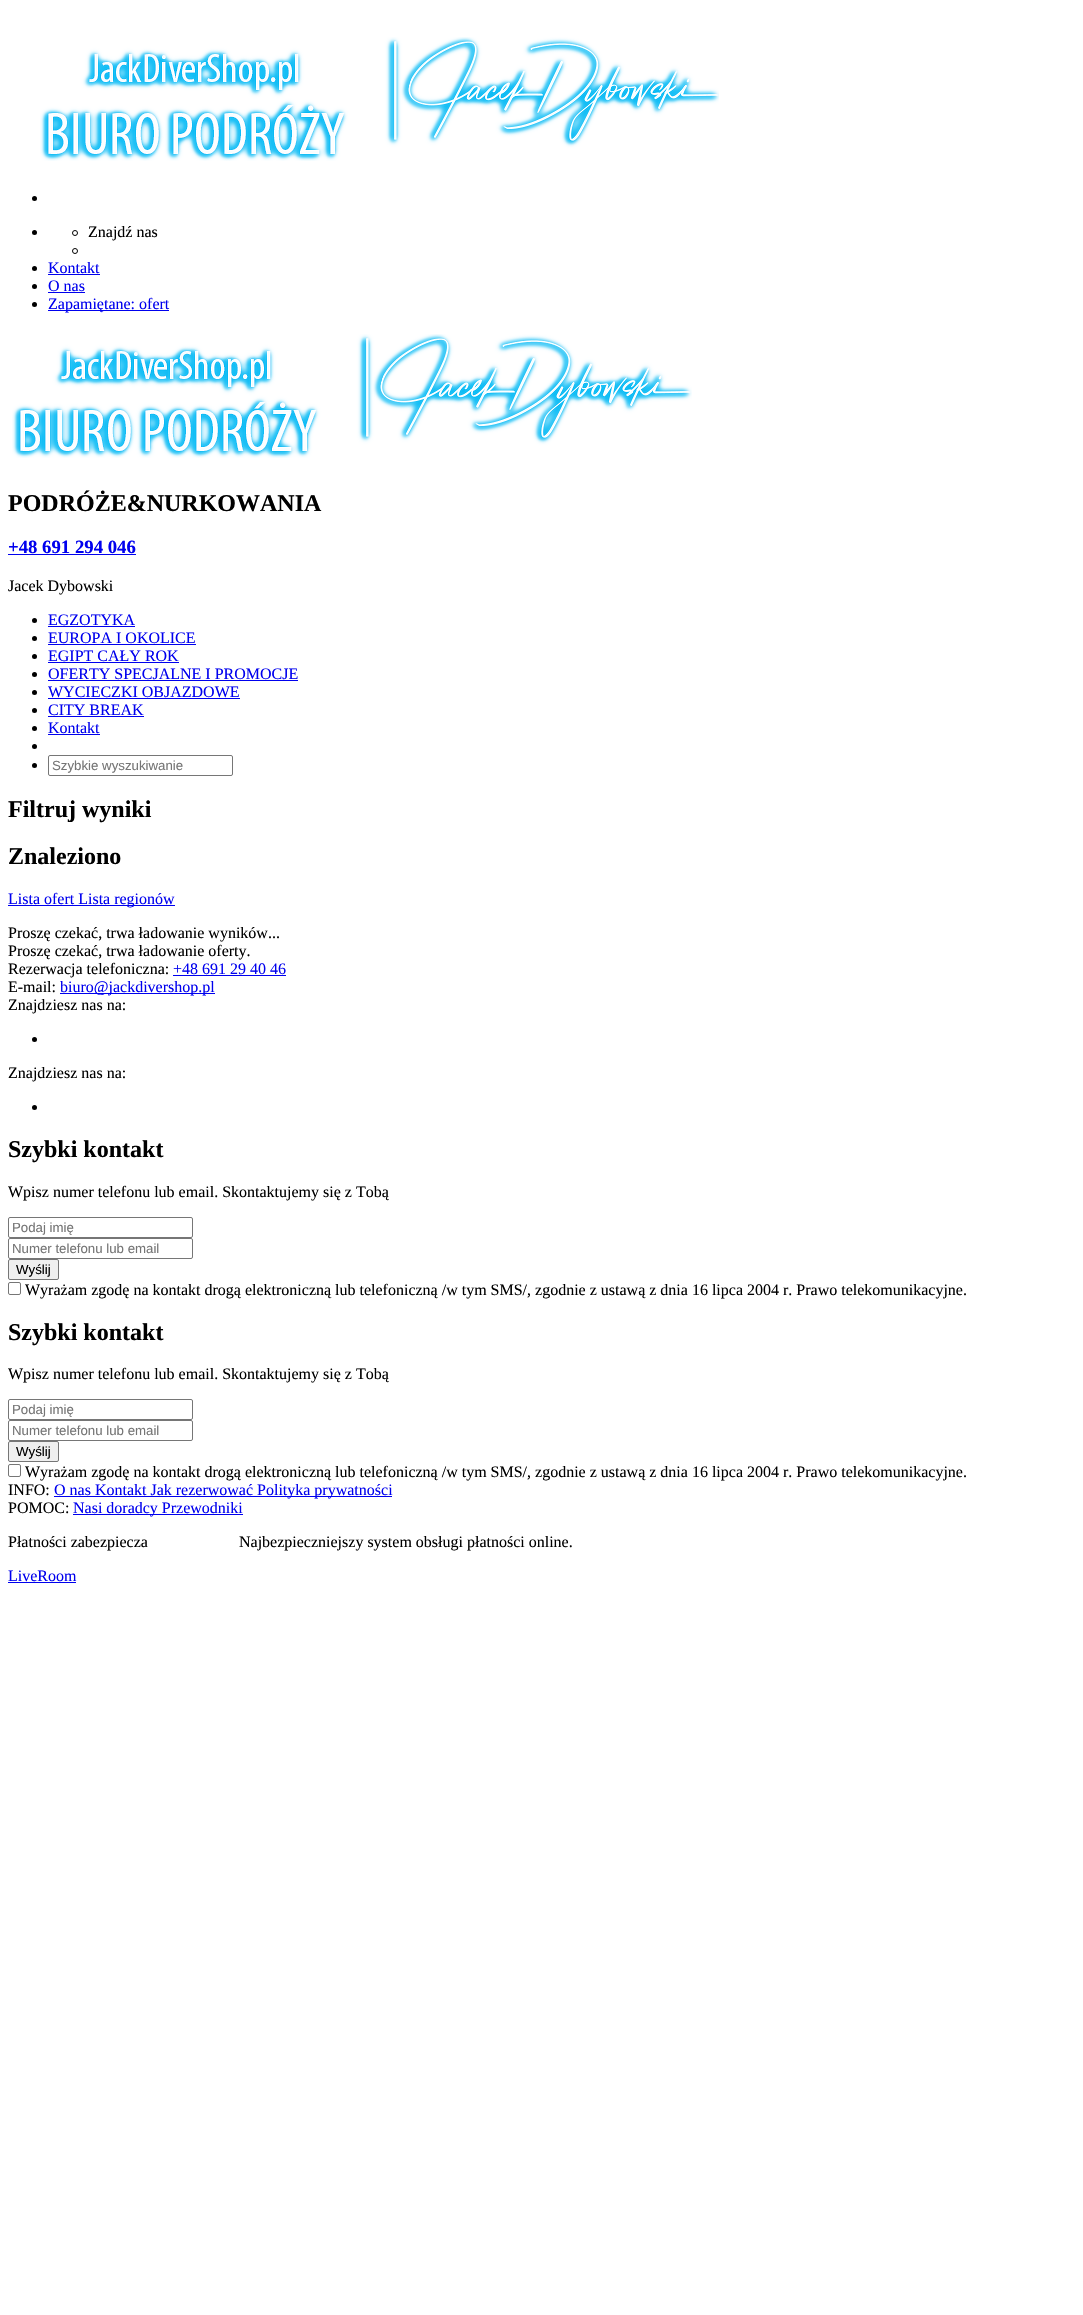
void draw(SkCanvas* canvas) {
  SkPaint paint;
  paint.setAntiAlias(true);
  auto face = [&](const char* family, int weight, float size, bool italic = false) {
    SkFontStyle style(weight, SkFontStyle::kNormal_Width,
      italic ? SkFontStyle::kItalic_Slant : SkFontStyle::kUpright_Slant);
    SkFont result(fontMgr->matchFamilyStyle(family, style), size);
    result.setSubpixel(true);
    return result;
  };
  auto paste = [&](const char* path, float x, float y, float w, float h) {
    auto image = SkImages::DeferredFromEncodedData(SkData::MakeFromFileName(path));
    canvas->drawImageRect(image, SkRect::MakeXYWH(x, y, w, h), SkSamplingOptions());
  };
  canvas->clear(0xffffffff);
  paste("img/1.png", 40, 37, 679, 124);
  paint.setColor(0xff000000);
  canvas->drawCircle(34.5f, 198.5f, 2.5f, paint);
  canvas->drawCircle(34.5f, 232.5f, 2.5f, paint);
  paint.setStroke(true);
  paint.setStrokeWidth(1);
  canvas->drawCircle(75, 233, 2.5f, paint);
  canvas->drawCircle(75, 251, 2.5f, paint);
  paint.setStroke(false);
  canvas->drawCircle(34.5f, 268.5f, 2.5f, paint);
  paint.setColor(0xff0000ee);
  canvas->drawRect(SkRect::MakeXYWH(48, 274, 52, 1), paint);
  paint.setColor(0xff000000);
  canvas->drawCircle(34.5f, 286.5f, 2.5f, paint);
  paint.setColor(0xff0000ee);
  canvas->drawRect(SkRect::MakeXYWH(48, 292, 37, 1), paint);
  paint.setColor(0xff000000);
  canvas->drawCircle(34.5f, 304.5f, 2.5f, paint);
  paint.setColor(0xff0000ee);
  canvas->drawRect(SkRect::MakeXYWH(48, 310, 121, 1), paint);
  paste("img/2.png", 12, 334, 680, 124);
  canvas->drawRect(SkRect::MakeXYWH(8, 554, 128, 1), paint);
  paint.setColor(0xff000000);
  canvas->drawCircle(34.5f, 620.5f, 2.5f, paint);
  paint.setColor(0xff0000ee);
  canvas->drawRect(SkRect::MakeXYWH(48, 626, 87, 1), paint);
  paint.setColor(0xff000000);
  canvas->drawCircle(34.5f, 638.5f, 2.5f, paint);
  paint.setColor(0xff0000ee);
  canvas->drawRect(SkRect::MakeXYWH(48, 644, 148, 1), paint);
  paint.setColor(0xff000000);
  canvas->drawCircle(34.5f, 656.5f, 2.5f, paint);
  paint.setColor(0xff0000ee);
  canvas->drawRect(SkRect::MakeXYWH(48, 662, 131, 1), paint);
  paint.setColor(0xff000000);
  canvas->drawCircle(34.5f, 674.5f, 2.5f, paint);
  paint.setColor(0xff0000ee);
  canvas->drawRect(SkRect::MakeXYWH(48, 680, 250, 1), paint);
  paint.setColor(0xff000000);
  canvas->drawCircle(34.5f, 692.5f, 2.5f, paint);
  paint.setColor(0xff0000ee);
  canvas->drawRect(SkRect::MakeXYWH(48, 698, 192, 1), paint);
  paint.setColor(0xff000000);
  canvas->drawCircle(34.5f, 710.5f, 2.5f, paint);
  paint.setColor(0xff0000ee);
  canvas->drawRect(SkRect::MakeXYWH(48, 716, 96, 1), paint);
  paint.setColor(0xff000000);
  canvas->drawCircle(34.5f, 728.5f, 2.5f, paint);
  paint.setColor(0xff0000ee);
  canvas->drawRect(SkRect::MakeXYWH(48, 734, 52, 1), paint);
  paint.setColor(0xff000000);
  canvas->drawCircle(34.5f, 746.5f, 2.5f, paint);
  canvas->drawCircle(34.5f, 765.5f, 2.5f, paint);
  paint.setStroke(true);
  paint.setColor(0xff767676);
  canvas->drawRoundRect(SkRect::MakeXYWH(48.5f, 755.5f, 184, 20), 1.5f, 1.5f, paint);
  paint.setStroke(false);
  {
    const struct { float x, y, w, h; SkColor color; } items[] = {
      {8, 905, 167, 1, 0xff0000ee},
      {173, 975, 113, 1, 0xff0000ee},
      {60, 993, 155, 1, 0xff0000ee},
    };
    for (auto [x, y, w, h, color] : items) {
      paint.setColor(color);
      canvas->drawRect(SkRect::MakeXYWH(x, y, w, h), paint);
    }
  }
  paint.setColor(0xff000000);
  canvas->drawCircle(34.5f, 1039.5f, 2.5f, paint);
  canvas->drawCircle(34.5f, 1107.5f, 2.5f, paint);
  paint.setStroke(true);
  paint.setColor(0xff767676);
  canvas->drawRoundRect(SkRect::MakeXYWH(8.5f, 1217.5f, 184, 20), 1.5f, 1.5f, paint);
  canvas->drawRoundRect(SkRect::MakeXYWH(8.5f, 1238.5f, 184, 20), 1.5f, 1.5f, paint);
  paint.setStroke(false);
  paint.setColor(0xffefefef);
  canvas->drawRoundRect(SkRect::MakeXYWH(8.5f, 1259.5f, 50, 20), 1.5f, 1.5f, paint);
  paint.setStroke(true);
  paint.setColor(0xff767676);
  canvas->drawRoundRect(SkRect::MakeXYWH(8.5f, 1259.5f, 50, 20), 1.5f, 1.5f, paint);
  canvas->drawRoundRect(SkRect::MakeXYWH(8.5f, 1282.5f, 12, 12), 1.5f, 1.5f, paint);
  canvas->drawRoundRect(SkRect::MakeXYWH(8.5f, 1399.5f, 184, 20), 1.5f, 1.5f, paint);
  canvas->drawRoundRect(SkRect::MakeXYWH(8.5f, 1420.5f, 184, 20), 1.5f, 1.5f, paint);
  paint.setStroke(false);
  paint.setColor(0xffefefef);
  canvas->drawRoundRect(SkRect::MakeXYWH(8.5f, 1441.5f, 50, 20), 1.5f, 1.5f, paint);
  paint.setStroke(true);
  paint.setColor(0xff767676);
  canvas->drawRoundRect(SkRect::MakeXYWH(8.5f, 1441.5f, 50, 20), 1.5f, 1.5f, paint);
  canvas->drawRoundRect(SkRect::MakeXYWH(8.5f, 1464.5f, 12, 12), 1.5f, 1.5f, paint);
  paint.setStroke(false);
  {
    const struct { float x, y, w, h; SkColor color; } items[] = {
      {54, 1496, 338, 1, 0xff0000ee},
      {73, 1514, 85, 1, 0xff0000ee},
      {158, 1514, 85, 1, 0xff0000ee},
      {8, 1582, 68, 1, 0xff0000ee},
    };
    for (auto [x, y, w, h, color] : items) {
      paint.setColor(color);
      canvas->drawRect(SkRect::MakeXYWH(x, y, w, h), paint);
    }
  }
  auto f0 = face("Liberation Serif", 400, 16);
  paint.setColor(0xff000000);
  canvas->drawString("Znajdź nas", 88, 237, f0, paint);
  paint.setColor(0xff0000ee);
  {
    const struct { const char* s; float x, y; } items[] = {
      {"Kontakt", 48, 273},
      {"O nas", 48, 291},
      {"Zapamiętane: ofert", 48, 309},
    };
    for (auto [s, x, y] : items) {
      canvas->drawString(s, x, y, f0, paint);
    }
  }
  auto f1 = face("Liberation Serif", 700, 24);
  paint.setColor(0xff000000);
  canvas->drawString("PODRÓŻE&NURKOWANIA", 8, 511, f1, paint);
  auto f2 = face("Liberation Serif", 700, 18.75f);
  paint.setColor(0xff0000ee);
  canvas->drawString("+48 691 294 046", 8, 553, f2, paint);
  paint.setColor(0xff000000);
  canvas->drawString("Jacek Dybowski", 8, 591, f0, paint);
  paint.setColor(0xff0000ee);
  {
    const struct { const char* s; float x, y; } items[] = {
      {"EGZOTYKA", 48, 625},
      {"EUROPA I OKOLICE", 48, 643},
      {"EGIPT CAŁY ROK", 48, 661},
      {"OFERTY SPECJALNE I PROMOCJE", 48, 679},
      {"WYCIECZKI OBJAZDOWE", 48, 697},
      {"CITY BREAK", 48, 715},
      {"Kontakt", 48, 733},
    };
    for (auto [s, x, y] : items) {
      canvas->drawString(s, x, y, f0, paint);
    }
  }
  auto f3 = face("Liberation Sans", 400, 13.25f);
  paint.setColor(0xff757575);
  canvas->drawString("Szybkie wyszukiwanie", 52, 770, f3, paint);
  paint.setColor(0xff000000);
  canvas->drawString("Filtruj wyniki", 8, 817, f1, paint);
  canvas->drawString("Znaleziono", 8, 864, f1, paint);
  paint.setColor(0xff0000ee);
  canvas->drawString("Lista ofert Lista regionów", 8, 904, f0, paint);
  paint.setColor(0xff000000);
  {
    const struct { const char* s; float x, y; } items[] = {
      {"Proszę czekać, trwa ładowanie wyników...", 8, 938},
      {"Proszę czekać, trwa ładowanie oferty.", 8, 956},
      {"Rezerwacja telefoniczna:", 8, 974},
    };
    for (auto [s, x, y] : items) {
      canvas->drawString(s, x, y, f0, paint);
    }
  }
  paint.setColor(0xff0000ee);
  canvas->drawString("+48 691 29 40 46", 173, 974, f0, paint);
  paint.setColor(0xff000000);
  canvas->drawString("E-mail:", 8, 992, f0, paint);
  paint.setColor(0xff0000ee);
  canvas->drawString("biuro@jackdivershop.pl", 60, 992, f0, paint);
  paint.setColor(0xff000000);
  canvas->drawString("Znajdziesz nas na:", 8, 1010, f0, paint);
  canvas->drawString("Znajdziesz nas na:", 8, 1078, f0, paint);
  canvas->drawString("Szybki kontakt", 8, 1157, f1, paint);
  canvas->drawString("Wpisz numer telefonu lub email. Skontaktujemy się z Tobą", 8, 1197, f0, paint);
  paint.setColor(0xff757575);
  canvas->drawString("Podaj imię", 12, 1232, f3, paint);
  canvas->drawString("Numer telefonu lub email", 12, 1253, f3, paint);
  paint.setColor(0xff000000);
  canvas->drawString("Wyślij", 16, 1274, f3, paint);
  canvas->drawString("Wyrażam zgodę na kontakt drogą elektroniczną lub telefoniczną /w tym SMS/, zgodnie z ustawą z dnia 16 lipca 2004 r. Prawo telekomunikacyjne.", 25, 1295, f0, paint);
  canvas->drawString("Szybki kontakt", 8, 1340, f1, paint);
  canvas->drawString("Wpisz numer telefonu lub email. Skontaktujemy się z Tobą", 8, 1379, f0, paint);
  paint.setColor(0xff757575);
  canvas->drawString("Podaj imię", 12, 1414, f3, paint);
  canvas->drawString("Numer telefonu lub email", 12, 1435, f3, paint);
  paint.setColor(0xff000000);
  canvas->drawString("Wyślij", 16, 1456, f3, paint);
  canvas->drawString("Wyrażam zgodę na kontakt drogą elektroniczną lub telefoniczną /w tym SMS/, zgodnie z ustawą z dnia 16 lipca 2004 r. Prawo telekomunikacyjne.", 25, 1477, f0, paint);
  canvas->drawString("INFO:", 8, 1495, f0, paint);
  paint.setColor(0xff0000ee);
  canvas->drawString("O nas Kontakt Jak rezerwować Polityka prywatności", 54, 1495, f0, paint);
  paint.setColor(0xff000000);
  canvas->drawString("POMOC:", 8, 1513, f0, paint);
  paint.setColor(0xff0000ee);
  canvas->drawString("Nasi doradcy Przewodniki", 73, 1513, f0, paint);
  paint.setColor(0xff000000);
  canvas->drawString("Płatności zabezpiecza", 8, 1547, f0, paint);
  canvas->drawString("Najbezpieczniejszy system obsługi płatności online.", 239, 1547, f0, paint);
  paint.setColor(0xff0000ee);
  canvas->drawString("LiveRoom", 8, 1581, f0, paint);
}
